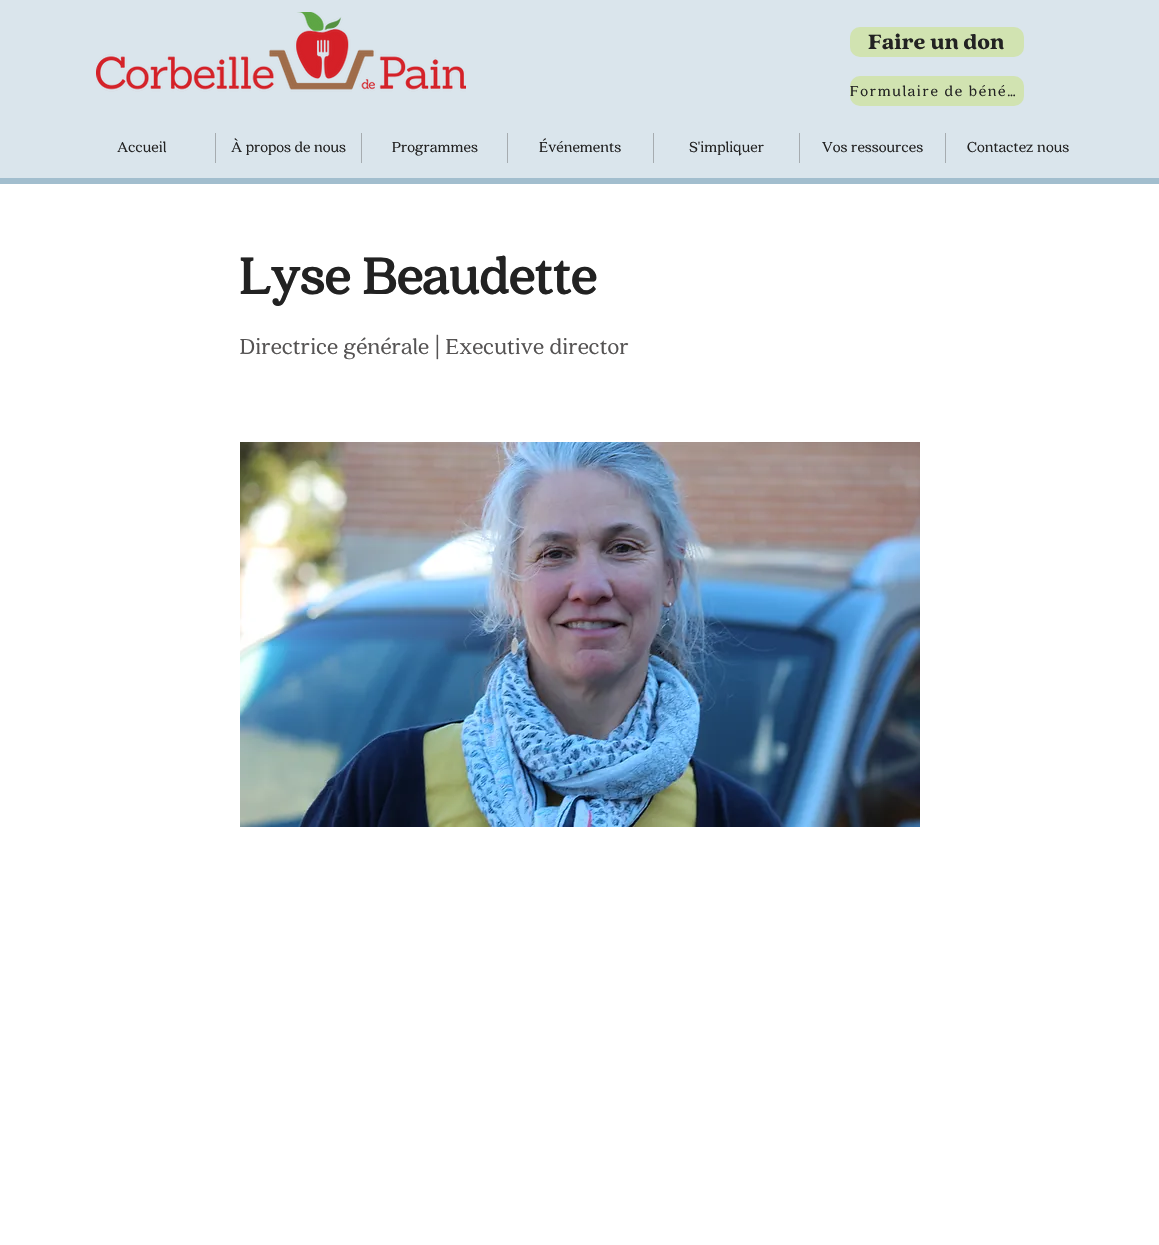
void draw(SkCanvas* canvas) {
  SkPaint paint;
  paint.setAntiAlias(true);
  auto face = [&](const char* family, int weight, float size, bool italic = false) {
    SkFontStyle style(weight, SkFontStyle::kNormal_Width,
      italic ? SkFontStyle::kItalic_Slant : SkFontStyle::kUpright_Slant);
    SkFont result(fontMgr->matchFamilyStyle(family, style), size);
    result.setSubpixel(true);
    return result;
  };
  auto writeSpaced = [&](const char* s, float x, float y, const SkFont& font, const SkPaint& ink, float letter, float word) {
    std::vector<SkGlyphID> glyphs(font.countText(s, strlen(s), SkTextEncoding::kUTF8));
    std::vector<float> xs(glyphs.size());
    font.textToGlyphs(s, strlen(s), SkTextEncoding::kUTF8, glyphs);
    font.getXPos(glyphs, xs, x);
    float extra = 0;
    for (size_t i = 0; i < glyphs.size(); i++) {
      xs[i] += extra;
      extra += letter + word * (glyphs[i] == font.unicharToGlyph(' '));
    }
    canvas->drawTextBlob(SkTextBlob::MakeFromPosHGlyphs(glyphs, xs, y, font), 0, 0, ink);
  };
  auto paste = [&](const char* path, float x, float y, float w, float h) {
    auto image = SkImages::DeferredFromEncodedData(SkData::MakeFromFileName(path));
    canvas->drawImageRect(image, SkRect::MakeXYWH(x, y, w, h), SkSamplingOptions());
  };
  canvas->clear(0xffa2bece);
  paint.setColor(0xffdae5ec);
  canvas->drawRect(SkRect::MakeXYWH(0, 0, 1159, 178), paint);
  paste("img/1.png", 96, 12, 370, 80);
  paint.setColor(0xffd1e3b1);
  canvas->drawRoundRect(SkRect::MakeXYWH(850, 27, 174, 30), 10, 10, paint);
  canvas->drawRoundRect(SkRect::MakeXYWH(850, 76, 174, 30), 10, 10, paint);
  {
    const struct { float x, y, w, h; SkColor color; } items[] = {
      {215, 133, 1, 30, 0xffa6acb0},
      {361, 133, 1, 30, 0xffa6acb0},
      {507, 133, 1, 30, 0xffa6acb0},
      {653, 133, 1, 30, 0xffa6acb0},
      {799, 133, 1, 30, 0xffa6acb0},
      {945, 133, 1, 30, 0xffa6acb0},
      {0, 184, 1159, 1061, 0xffffffff},
    };
    for (auto [x, y, w, h, color] : items) {
      paint.setColor(color);
      canvas->drawRect(SkRect::MakeXYWH(x, y, w, h), paint);
    }
  }
  paste("img/2.png", 240, 442, 680, 385);
  auto f0 = face("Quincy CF", 900, 23);
  paint.setColor(0xff222222);
  canvas->drawString("Faire un don", 868, 49, f0, paint);
  auto f1 = face("Quincy CF", 400, 16);
  writeSpaced("Formulaire de béné…", 850, 96, f1, paint, 1.6f, 0);
  {
    const struct { const char* s; float x, y; } items[] = {
      {"Accueil", 117, 152},
      {"À propos de nous", 231, 152},
      {"Programmes", 392, 152},
      {"Événements", 539, 152},
      {"S'impliquer", 689, 152},
      {"Vos ressources", 822, 152},
      {"Contactez nous", 967, 152},
    };
    for (auto [s, x, y] : items) {
      canvas->drawString(s, x, y, f1, paint);
    }
  }
  auto f2 = face("Quincy CF", 700, 56);
  canvas->drawString("Lyse Beaudette", 240, 294, f2, paint);
  auto f3 = face("Quincy CF", 400, 24);
  paint.setColor(0xff555353);
  canvas->drawString("Directrice générale | Executive director", 240, 354, f3, paint);
}
